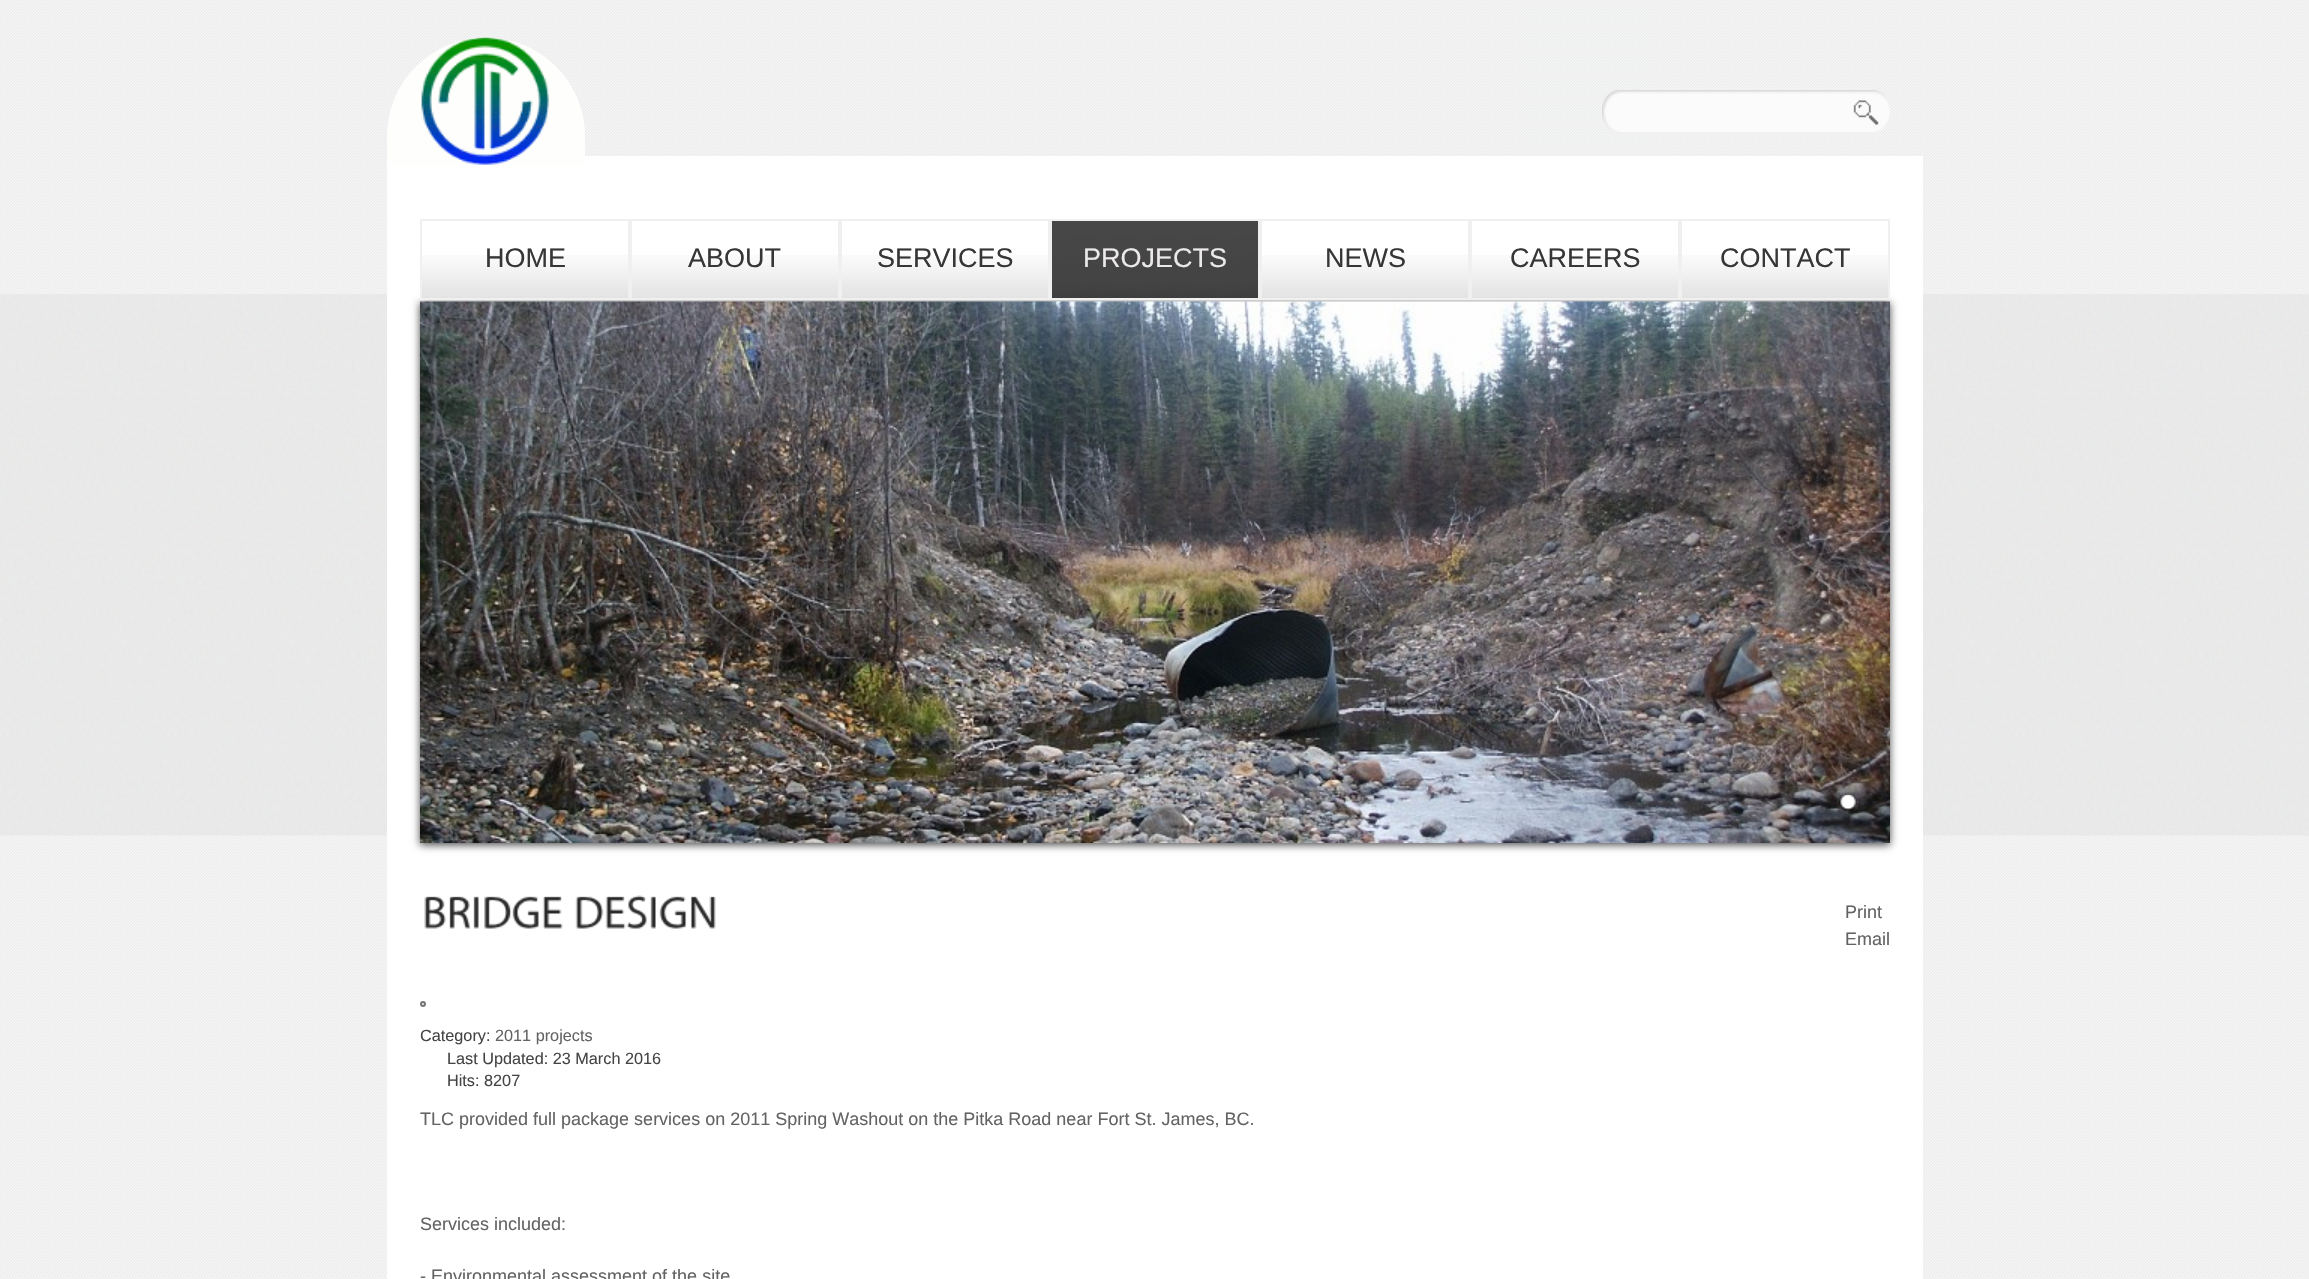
void draw(SkCanvas* canvas) {
  SkPaint paint;
  paint.setAntiAlias(true);
  auto face = [&](const char* family, int weight, float size, bool italic = false) {
    SkFontStyle style(weight, SkFontStyle::kNormal_Width,
      italic ? SkFontStyle::kItalic_Slant : SkFontStyle::kUpright_Slant);
    SkFont result(fontMgr->matchFamilyStyle(family, style), size);
    result.setSubpixel(true);
    return result;
  };
  auto paste = [&](const char* path, float x, float y, float w, float h) {
    auto image = SkImages::DeferredFromEncodedData(SkData::MakeFromFileName(path));
    canvas->drawImageRect(image, SkRect::MakeXYWH(x, y, w, h), SkSamplingOptions());
  };
  canvas->clear(0xffffffff);
  paste("img/1.png", 0, 0, 2309, 1279);
  paste("img/2.png", 0, 294, 2309, 542);
  paint.setColor(0xffffffff);
  canvas->drawRect(SkRect::MakeXYWH(387, 156, 1536, 1123), paint);
  paste("img/3.png", 387, 37, 198, 128);
  paste("img/4.png", 1602, 90, 288, 42);
  paste("img/5.png", 1853, 100, 26, 25);
  paint.setColor(0xff4a4a4a);
  paint.setMaskFilter(SkMaskFilter::MakeBlur(kNormal_SkBlurStyle, 4));
  canvas->drawRect(SkRect::MakeXYWH(420, 303, 1470, 542), paint);
  paint.setMaskFilter(nullptr);
  paste("img/6.png", 422, 255, 206, 43);
  paint.setStroke(true);
  paint.setStrokeWidth(2);
  paint.setColor(0xfff0f0f0);
  canvas->drawRect(SkRect::MakeXYWH(421, 220, 208, 79), paint);
  paste("img/6.png", 632, 255, 206, 43);
  canvas->drawRect(SkRect::MakeXYWH(631, 220, 208, 79), paint);
  paste("img/6.png", 842, 255, 206, 43);
  canvas->drawRect(SkRect::MakeXYWH(841, 220, 208, 79), paint);
  paste("img/7.png", 1052, 221, 206, 77);
  canvas->drawRect(SkRect::MakeXYWH(1051, 220, 208, 79), paint);
  paste("img/6.png", 1262, 255, 206, 43);
  canvas->drawRect(SkRect::MakeXYWH(1261, 220, 208, 79), paint);
  paste("img/6.png", 1472, 255, 206, 43);
  canvas->drawRect(SkRect::MakeXYWH(1471, 220, 208, 79), paint);
  paste("img/6.png", 1682, 255, 206, 43);
  canvas->drawRect(SkRect::MakeXYWH(1681, 220, 208, 79), paint);
  paste("img/8.png", 420, 301, 1470, 542);
  paste("img/9.png", 1839, 792, 18, 19);
  paste("img/10.png", 424, 896, 139, 33);
  paste("img/11.png", 575, 895, 141, 34);
  paint.setStroke(false);
  paint.setColor(0xffefefef);
  canvas->drawCircle(423, 1004, 2, paint);
  paint.setStroke(true);
  paint.setColor(0xff767676);
  canvas->drawCircle(423, 1004, 2, paint);
  auto f0 = face("Liberation Sans", 400, 27);
  paint.setStroke(false);
  paint.setColor(0xff363636);
  {
    const struct { const char* s; float x, y; } items[] = {
      {"HOME", 485, 267},
      {"ABOUT", 688, 267},
      {"SERVICES", 877, 267},
    };
    for (auto [s, x, y] : items) {
      canvas->drawString(s, x, y, f0, paint);
    }
  }
  paint.setColor(0xffece9e9);
  canvas->drawString("PROJECTS", 1083, 267, f0, paint);
  paint.setColor(0xff363636);
  {
    const struct { const char* s; float x, y; } items[] = {
      {"NEWS", 1325, 267},
      {"CAREERS", 1510, 267},
      {"CONTACT", 1720, 267},
    };
    for (auto [s, x, y] : items) {
      canvas->drawString(s, x, y, f0, paint);
    }
  }
  auto f1 = face("Liberation Sans", 400, 18);
  paint.setColor(0xff636363);
  canvas->drawString("Print", 1845, 918, f1, paint);
  canvas->drawString("Email", 1845, 945, f1, paint);
  auto f2 = face("Liberation Sans", 400, 16.25f);
  paint.setColor(0xff444444);
  canvas->drawString("Category:", 420, 1041, f2, paint);
  paint.setColor(0xff636363);
  canvas->drawString("2011 projects", 495, 1041, f2, paint);
  paint.setColor(0xff444444);
  canvas->drawString("Last Updated: 23 March 2016", 447, 1064, f2, paint);
  canvas->drawString("Hits: 8207", 447, 1086, f2, paint);
  paint.setColor(0xff636363);
  {
    const struct { const char* s; float x, y; } items[] = {
      {"TLC provided full package services on 2011 Spring Washout on the Pitka Road near Fort St. James, BC.", 420, 1125},
      {"Services included:", 420, 1230},
      {"- Environmental assessment of the site", 420, 1282},
    };
    for (auto [s, x, y] : items) {
      canvas->drawString(s, x, y, f1, paint);
    }
  }
}
